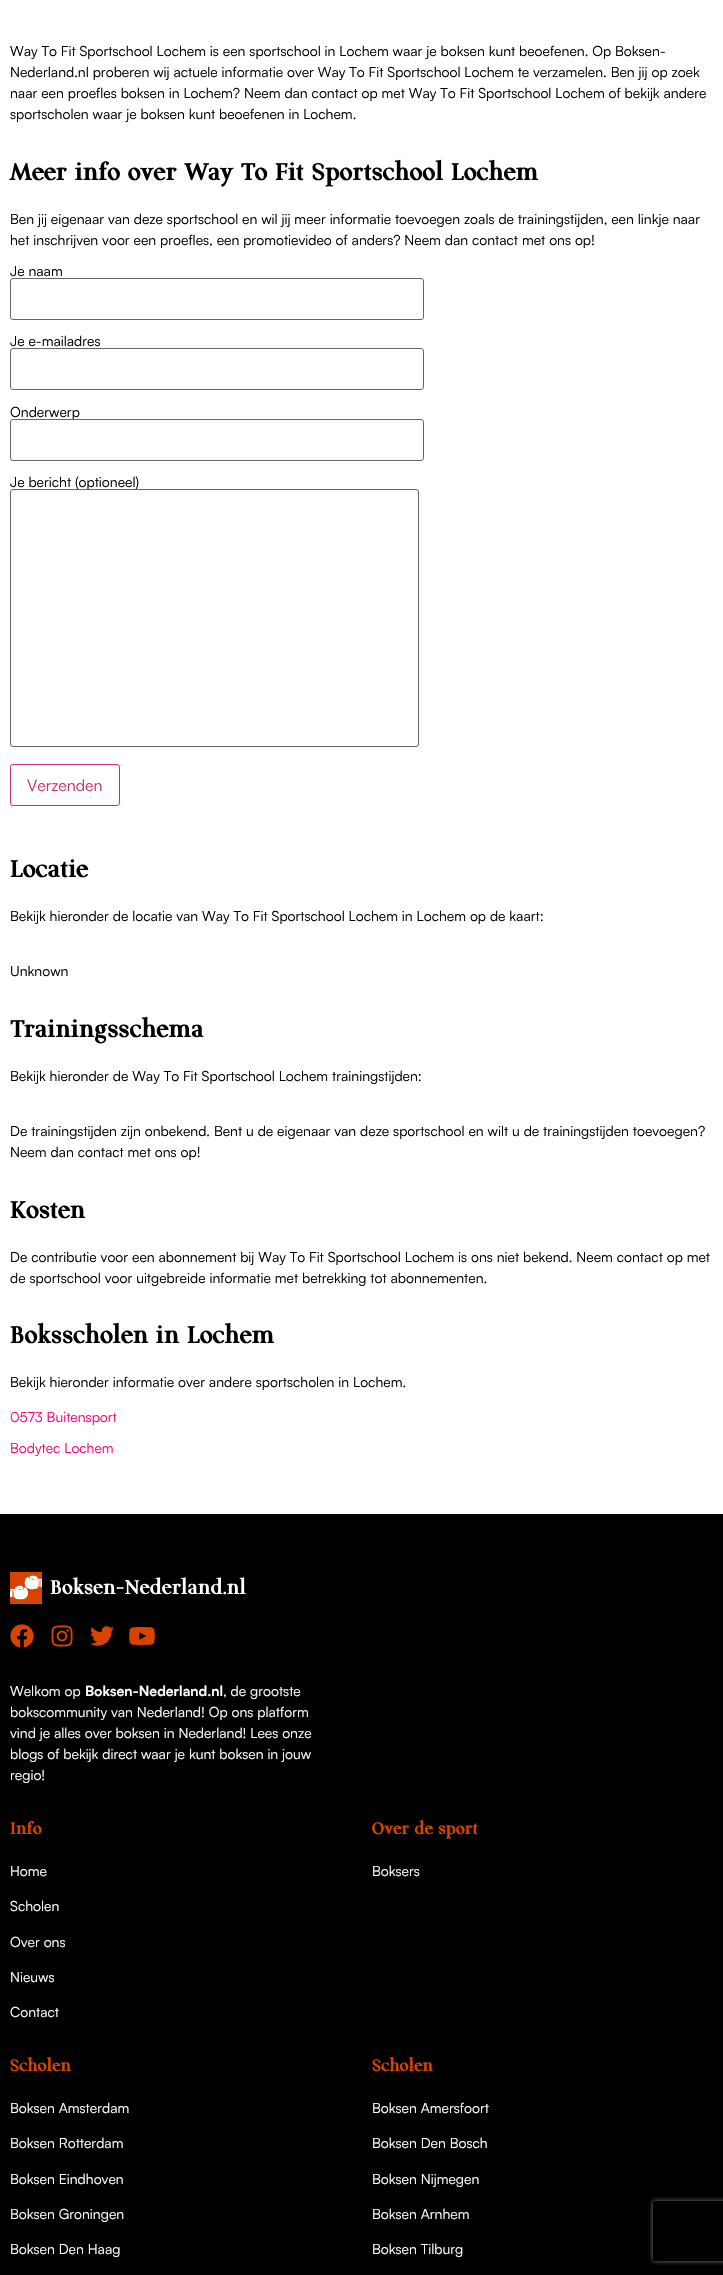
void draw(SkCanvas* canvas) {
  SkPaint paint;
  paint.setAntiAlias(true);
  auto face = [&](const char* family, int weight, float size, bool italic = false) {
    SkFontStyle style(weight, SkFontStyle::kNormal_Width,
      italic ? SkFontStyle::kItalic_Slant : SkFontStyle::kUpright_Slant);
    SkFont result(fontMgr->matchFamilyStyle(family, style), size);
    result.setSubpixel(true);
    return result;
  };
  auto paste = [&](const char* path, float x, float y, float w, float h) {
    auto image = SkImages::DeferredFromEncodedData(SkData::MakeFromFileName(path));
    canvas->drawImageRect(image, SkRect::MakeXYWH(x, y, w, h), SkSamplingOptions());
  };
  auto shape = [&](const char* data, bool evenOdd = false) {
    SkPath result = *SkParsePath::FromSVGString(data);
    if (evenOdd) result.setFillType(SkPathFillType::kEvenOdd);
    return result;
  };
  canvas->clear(0xffffffff);
  paint.setStroke(true);
  paint.setStrokeWidth(1);
  paint.setColor(0xff666666);
  canvas->drawRoundRect(SkRect::MakeXYWH(10.5f, 278.5f, 413, 41), 2.5f, 2.5f, paint);
  canvas->drawRoundRect(SkRect::MakeXYWH(10.5f, 348.5f, 413, 41), 2.5f, 2.5f, paint);
  paint.setColor(0xffcc3366);
  canvas->drawRoundRect(SkRect::MakeXYWH(10.5f, 764.5f, 109, 41), 2.5f, 2.5f, paint);
  paint.setStroke(false);
  paint.setColor(0xff000000);
  canvas->drawRect(SkRect::MakeXYWH(0, 1514, 723, 761), paint);
  paste("img/1.png", 10, 1572, 236, 32);
  paste("img/2.png", 10, 1624, 24, 24);
  paste("img/3.png", 51, 1625, 22, 22);
  paste("img/4.png", 90, 1626, 24, 20);
  paste("img/5.png", 129, 1627, 26, 18);
  canvas->save();
  canvas->clipPath(shape("M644 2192H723V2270H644ZM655 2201H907C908 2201 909 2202 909 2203V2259C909 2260 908 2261 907 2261H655C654 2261 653 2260 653 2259V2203C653 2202 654 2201 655 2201Z", true), true);
  paint.setColor(0xff808080);
  paint.setMaskFilter(SkMaskFilter::MakeBlur(kNormal_SkBlurStyle, 2.5f));
  canvas->drawRoundRect(SkRect::MakeXYWH(653, 2201, 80, 60), 2, 2, paint);
  paint.setMaskFilter(nullptr);
  canvas->restore();
  auto f0 = face("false", 400, 14);
  paint.setColor(0xff000000);
  {
    const struct { const char* s; float x, y; } items[] = {
      {"Way To Fit Sportschool Lochem is een sportschool in Lochem waar je boksen kunt beoefenen. Op Boksen-", 10, 56},
      {"Nederland.nl proberen wij actuele informatie over Way To Fit Sportschool Lochem te verzamelen. Ben jij op zoek", 10, 77},
      {"naar een proefles boksen in Lochem? Neem dan contact op met Way To Fit Sportschool Lochem of bekijk andere", 10, 98},
      {"sportscholen waar je boksen kunt beoefenen in Lochem.", 10, 119},
    };
    for (auto [s, x, y] : items) {
      canvas->drawString(s, x, y, f0, paint);
    }
  }
  auto f1 = face("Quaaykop", 700, 29);
  canvas->drawString("Meer info over Way To Fit Sportschool Lochem", 10, 180, f1, paint);
  {
    const struct { const char* s; float x, y; } items[] = {
      {"Ben jij eigenaar van deze sportschool en wil jij meer informatie toevoegen zoals de trainingstijden, een linkje naar", 10, 224},
      {"het inschrijven voor een proefles, een promotievideo of anders? Neem dan contact met ons op!", 10, 245},
      {"Je naam", 10, 276},
      {"Je e-mailadres", 10, 346},
      {"Onderwerp", 10, 417},
    };
    for (auto [s, x, y] : items) {
      canvas->drawString(s, x, y, f0, paint);
    }
  }
  paint.setColor(0xffffffff);
  canvas->drawRoundRect(SkRect::MakeXYWH(10.5f, 419.5f, 413, 41), 2.5f, 2.5f, paint);
  paint.setStroke(true);
  paint.setColor(0xff666666);
  canvas->drawRoundRect(SkRect::MakeXYWH(10.5f, 419.5f, 413, 41), 2.5f, 2.5f, paint);
  paint.setStroke(false);
  paint.setColor(0xff000000);
  canvas->drawString("Je bericht (optioneel)", 10, 487, f0, paint);
  paint.setColor(0xffffffff);
  canvas->drawRoundRect(SkRect::MakeXYWH(10.5f, 489.5f, 408, 257), 2.5f, 2.5f, paint);
  paint.setStroke(true);
  paint.setColor(0xff666666);
  canvas->drawRoundRect(SkRect::MakeXYWH(10.5f, 489.5f, 408, 257), 2.5f, 2.5f, paint);
  auto f2 = face("false", 400, 16);
  paint.setStroke(false);
  paint.setColor(0xffcc3366);
  canvas->drawString("Verzenden", 27, 791, f2, paint);
  paint.setColor(0xff000000);
  canvas->drawString("Locatie", 10, 877, f1, paint);
  canvas->drawString("Bekijk hieronder de locatie van Way To Fit Sportschool Lochem in Lochem op de kaart:", 10, 921, f0, paint);
  canvas->drawString("Unknown", 10, 976, f0, paint);
  canvas->drawString("Trainingsschema", 10, 1037, f1, paint);
  {
    const struct { const char* s; float x, y; } items[] = {
      {"Bekijk hieronder de Way To Fit Sportschool Lochem trainingstijden:", 10, 1081},
      {"De trainingstijden zijn onbekend. Bent u de eigenaar van deze sportschool en wilt u de trainingstijden toevoegen?", 10, 1136},
      {"Neem dan contact met ons op!", 10, 1157},
    };
    for (auto [s, x, y] : items) {
      canvas->drawString(s, x, y, f0, paint);
    }
  }
  canvas->drawString("Kosten", 10, 1218, f1, paint);
  canvas->drawString("De contributie voor een abonnement bij Way To Fit Sportschool Lochem is ons niet bekend. Neem contact op met", 10, 1262, f0, paint);
  canvas->drawString("de sportschool voor uitgebreide informatie met betrekking tot abonnementen.", 10, 1283, f0, paint);
  canvas->drawString("Boksscholen in Lochem", 10, 1343, f1, paint);
  canvas->drawString("Bekijk hieronder informatie over andere sportscholen in Lochem.", 10, 1387, f0, paint);
  paint.setColor(0xfffc047c);
  canvas->drawString("0573 Buitensport", 10, 1422, f0, paint);
  canvas->drawString("Bodytec Lochem", 10, 1453, f0, paint);
  paint.setColor(0xffffffff);
  canvas->drawString("Welkom op", 10, 1696, f0, paint);
  auto f3 = face("false", 700, 14);
  canvas->drawString("Boksen-Nederland.nl", 85, 1696, f3, paint);
  {
    const struct { const char* s; float x, y; } items[] = {
      {", de grootste", 223, 1696},
      {"bokscommunity van Nederland! Op ons platform", 10, 1717},
      {"vind je alles over boksen in Nederland! Lees onze", 10, 1738},
      {"blogs of bekijk direct waar je kunt boksen in jouw", 10, 1759},
      {"regio!", 10, 1780},
    };
    for (auto [s, x, y] : items) {
      canvas->drawString(s, x, y, f0, paint);
    }
  }
  auto f4 = face("Quaaykop", 700, 20);
  paint.setColor(0xffd84400);
  canvas->drawString("Info", 10, 1834, f4, paint);
  paint.setColor(0xffffffff);
  {
    const struct { const char* s; float x, y; } items[] = {
      {"Home", 10, 1876},
      {"Scholen", 10, 1911},
      {"Over ons", 10, 1947},
      {"Nieuws", 10, 1982},
      {"Contact", 10, 2017},
    };
    for (auto [s, x, y] : items) {
      canvas->drawString(s, x, y, f0, paint);
    }
  }
  paint.setColor(0xffd84400);
  canvas->drawString("Over de sport", 372, 1834, f4, paint);
  paint.setColor(0xffffffff);
  canvas->drawString("Boksers", 372, 1876, f0, paint);
  paint.setColor(0xffd84400);
  canvas->drawString("Scholen", 10, 2071, f4, paint);
  paint.setColor(0xffffffff);
  {
    const struct { const char* s; float x, y; } items[] = {
      {"Boksen Amsterdam", 10, 2113},
      {"Boksen Rotterdam", 10, 2148},
      {"Boksen Eindhoven", 10, 2184},
      {"Boksen Groningen", 10, 2219},
      {"Boksen Den Haag", 10, 2254},
    };
    for (auto [s, x, y] : items) {
      canvas->drawString(s, x, y, f0, paint);
    }
  }
  paint.setColor(0xffd84400);
  canvas->drawString("Scholen", 372, 2071, f4, paint);
  paint.setColor(0xffffffff);
  {
    const struct { const char* s; float x, y; } items[] = {
      {"Boksen Amersfoort", 372, 2113},
      {"Boksen Den Bosch", 372, 2148},
      {"Boksen Nijmegen", 372, 2184},
      {"Boksen Arnhem", 372, 2219},
      {"Boksen Tilburg", 372, 2254},
    };
    for (auto [s, x, y] : items) {
      canvas->drawString(s, x, y, f0, paint);
    }
  }
}
